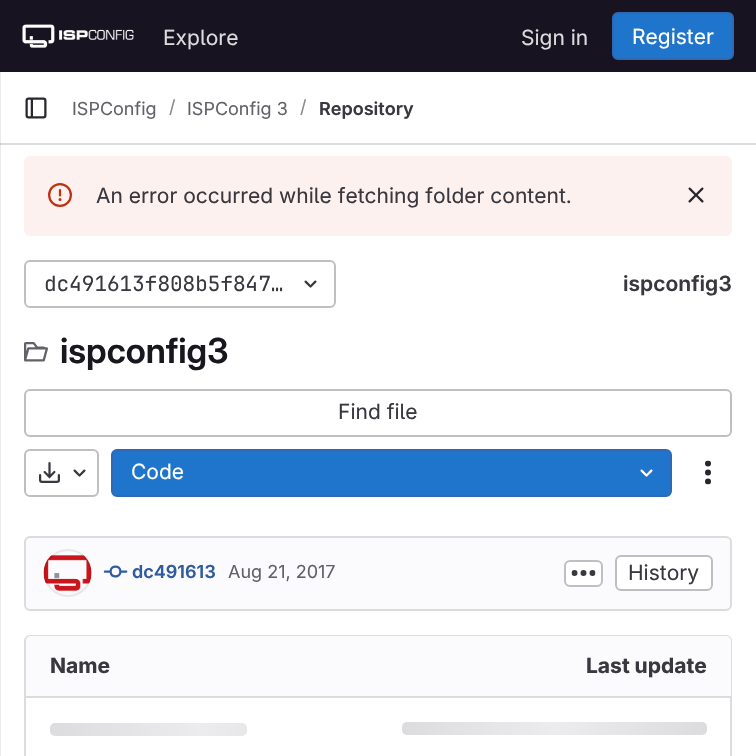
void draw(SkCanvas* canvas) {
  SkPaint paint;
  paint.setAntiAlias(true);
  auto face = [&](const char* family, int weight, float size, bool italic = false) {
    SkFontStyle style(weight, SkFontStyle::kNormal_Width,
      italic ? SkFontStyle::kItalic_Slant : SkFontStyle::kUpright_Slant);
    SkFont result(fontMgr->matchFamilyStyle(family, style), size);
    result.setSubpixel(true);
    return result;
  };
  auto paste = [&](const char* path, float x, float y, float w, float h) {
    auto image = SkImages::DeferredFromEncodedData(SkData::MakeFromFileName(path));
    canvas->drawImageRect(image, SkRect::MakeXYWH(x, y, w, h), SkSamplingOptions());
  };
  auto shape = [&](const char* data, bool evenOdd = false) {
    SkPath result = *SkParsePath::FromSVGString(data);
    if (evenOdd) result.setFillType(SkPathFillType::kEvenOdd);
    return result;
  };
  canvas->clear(0xffffffff);
  paint.setColor(0xffebebeb);
  canvas->drawRect(SkRect::MakeXYWH(0, 72, 1, 684), paint);
  paint.setColor(0xff171321);
  canvas->drawRect(SkRect::MakeXYWH(0, 0, 756, 72), paint);
  paste("img/1.png", 22, 24, 112, 24);
  paint.setColor(0xff1f75cb);
  canvas->drawRoundRect(SkRect::MakeXYWH(613, 13, 120, 46), 5, 5, paint);
  paint.setStroke(true);
  paint.setStrokeWidth(2);
  paint.setColor(0xff2f68b4);
  canvas->drawRoundRect(SkRect::MakeXYWH(613, 13, 120, 46), 5, 5, paint);
  paint.setStroke(false);
  paint.setColor(0xffdcdcde);
  canvas->drawRect(SkRect::MakeXYWH(0, 143, 756, 2), paint);
  paint.setColor(0xffcbcbcd);
  canvas->drawRect(SkRect::MakeXYWH(0, 143, 1, 2), paint);
  paste("img/2.png", 25, 97, 22, 22);
  paint.setColor(0xfffcf1ef);
  canvas->drawRoundRect(SkRect::MakeXYWH(24, 156, 708, 80), 6, 6, paint);
  paste("img/3.png", 48, 183, 24, 24);
  paste("img/4.png", 688, 187, 16, 16);
  paint.setStroke(true);
  paint.setColor(0xffbfbfc3);
  canvas->drawRoundRect(SkRect::MakeXYWH(25, 261, 310, 46), 5, 5, paint);
  paste("img/5.png", 304, 280, 13, 8);
  paste("img/6.png", 24, 342, 24, 20);
  canvas->drawRoundRect(SkRect::MakeXYWH(25, 390, 706, 46), 5, 5, paint);
  canvas->drawRoundRect(SkRect::MakeXYWH(25, 450, 73, 46), 5, 5, paint);
  paste("img/7.png", 39, 462, 21, 21);
  paste("img/5.png", 73, 469, 13, 8);
  paint.setStroke(false);
  paint.setColor(0xff1f75cb);
  canvas->drawRoundRect(SkRect::MakeXYWH(112, 450, 559, 46), 5, 5, paint);
  paint.setStroke(true);
  paint.setColor(0xff2f68b4);
  canvas->drawRoundRect(SkRect::MakeXYWH(112, 450, 559, 46), 5, 5, paint);
  paste("img/8.png", 640, 469, 13, 8);
  paste("img/9.png", 705, 460, 6, 25);
  paint.setStroke(false);
  paint.setColor(0xfffbfafd);
  canvas->drawRoundRect(SkRect::MakeXYWH(25, 537, 706, 73), 5, 5, paint);
  paint.setStroke(true);
  paint.setColor(0xffdcdcde);
  canvas->drawRoundRect(SkRect::MakeXYWH(25, 537, 706, 73), 5, 5, paint);
  paste("img/10.png", 43, 555, 49, 36);
  paint.setColor(0x14050506);
  canvas->drawCircle(68, 573, 23, paint);
  paste("img/11.png", 103, 565, 25, 13);
  paint.setStroke(false);
  paint.setColor(0xffffffff);
  canvas->drawRoundRect(SkRect::MakeXYWH(565, 561, 37, 25), 5, 5, paint);
  paint.setStroke(true);
  paint.setColor(0xffbfbfc3);
  canvas->drawRoundRect(SkRect::MakeXYWH(565, 561, 37, 25), 5, 5, paint);
  paste("img/12.png", 571, 570, 25, 6);
  paint.setStroke(false);
  paint.setColor(0xffffffff);
  canvas->drawRoundRect(SkRect::MakeXYWH(616, 556, 96, 34), 5, 5, paint);
  paint.setStroke(true);
  paint.setColor(0xffbfbfc3);
  canvas->drawRoundRect(SkRect::MakeXYWH(616, 556, 96, 34), 5, 5, paint);
  paint.setColor(0xffdcdcde);
  canvas->drawRoundRect(SkRect::MakeXYWH(25, 636, 706, 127), 5, 5, paint);
  paint.setStroke(false);
  paint.setColor(0xfffbfafd);
  canvas->drawPath(shape("M31 636H378V696H26V641C26 638 28 636 31 636Z"), paint);
  canvas->drawPath(shape("M378 636H726C729 636 731 638 731 641V696H378Z"), paint);
  paint.setColor(0xffdcdcde);
  canvas->drawRect(SkRect::MakeXYWH(26, 696, 705, 2), paint);
  {
    const SkColor colors[] = {0xffdcdcde, 0xffececef, 0xffdcdcde};
    const float stops[] = {0, 0.5f, 1};
    const SkPoint ends[] = {{402, 722}, {707, 722}};
    paint.setShader(SkGradientShader::MakeLinear(ends, colors, stops, 3, SkTileMode::kClamp));
    paint.setAlpha(255);
  }
  canvas->drawRoundRect(SkRect::MakeXYWH(402, 722, 305, 13), 5, 5, paint);
  {
    const SkColor colors[] = {0xffdcdcde, 0xffececef, 0xffdcdcde};
    const float stops[] = {0, 0.5f, 1};
    const SkPoint ends[] = {{50, 723}, {354, 723}};
    paint.setShader(SkGradientShader::MakeLinear(ends, colors, stops, 3, SkTileMode::kClamp));
    paint.setAlpha(255);
  }
  canvas->drawRoundRect(SkRect::MakeXYWH(50, 723, 197, 13), 5, 5, paint);
  auto f0 = face("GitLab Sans", 400, 21);
  paint.setShader(nullptr);
  paint.setColor(0xffdcdcde);
  canvas->drawString("Explore", 163, 45, f0, paint);
  canvas->drawString("Sign in", 521, 45, f0, paint);
  paint.setColor(0xffffffff);
  canvas->drawString("Register", 632, 44, f0, paint);
  auto f1 = face("GitLab Sans", 400, 18);
  paint.setColor(0xff626168);
  canvas->drawString("ISPConfig", 72, 115, f1, paint);
  paint.setColor(0xff89888d);
  canvas->drawString("/", 169, 113, f1, paint);
  paint.setColor(0xff626168);
  canvas->drawString("ISPConfig 3", 187, 115, f1, paint);
  paint.setColor(0xff89888d);
  canvas->drawString("/", 300, 113, f1, paint);
  auto f2 = face("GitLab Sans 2", 600, 18);
  paint.setColor(0xff3a383f);
  canvas->drawString("Repository", 319, 115, f2, paint);
  canvas->drawString("An error occurred while fetching folder content.", 96, 203, f0, paint);
  auto f3 = face("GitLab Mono", 400, 21);
  canvas->drawString("dc491613f808b5f847…", 44, 291, f3, paint);
  auto f4 = face("GitLab Sans 2", 600, 21);
  canvas->drawString("ispconfig3", 623, 291, f4, paint);
  auto f5 = face("GitLab Sans", 600, 34.5f);
  paint.setColor(0xff18171d);
  canvas->drawString("ispconfig3", 60, 363, f5, paint);
  paint.setColor(0xff3a383f);
  canvas->drawString("Find file", 338, 419, f0, paint);
  paint.setColor(0xffffffff);
  canvas->drawString("Code", 131, 479, f0, paint);
  paint.setColor(0xff2f5ca0);
  canvas->drawString("dc491613", 132, 578, f2, paint);
  paint.setColor(0xff626168);
  canvas->drawString("Aug 21, 2017", 228, 578, f1, paint);
  paint.setColor(0xff3a383f);
  canvas->drawString("History", 628, 580, f0, paint);
  auto f6 = face("GitLab Sans", 700, 21);
  canvas->drawString("Name", 50, 673, f6, paint);
  canvas->drawString("Last update", 586, 673, f6, paint);
}
